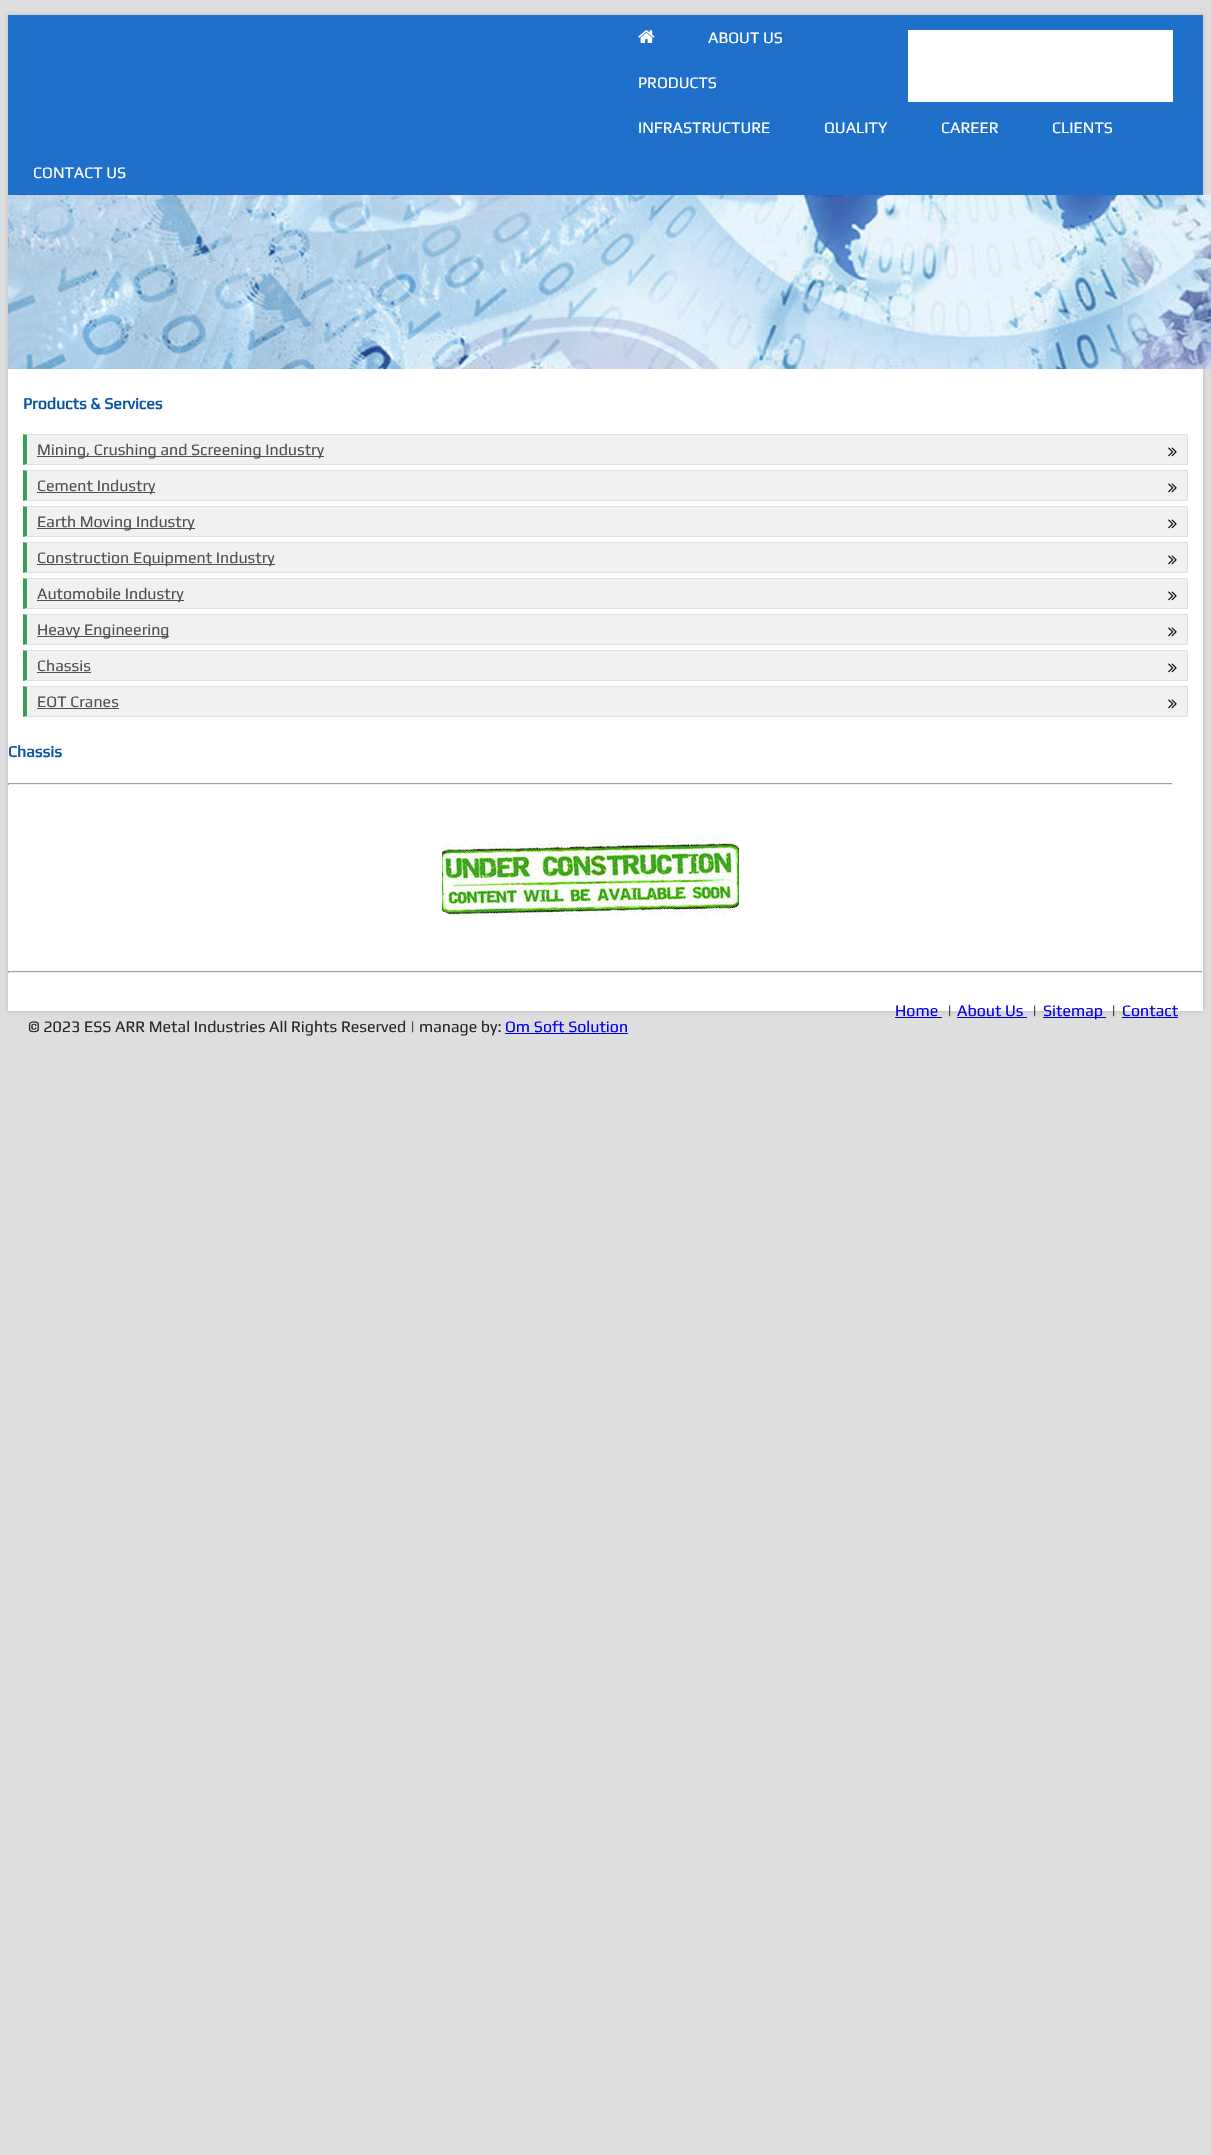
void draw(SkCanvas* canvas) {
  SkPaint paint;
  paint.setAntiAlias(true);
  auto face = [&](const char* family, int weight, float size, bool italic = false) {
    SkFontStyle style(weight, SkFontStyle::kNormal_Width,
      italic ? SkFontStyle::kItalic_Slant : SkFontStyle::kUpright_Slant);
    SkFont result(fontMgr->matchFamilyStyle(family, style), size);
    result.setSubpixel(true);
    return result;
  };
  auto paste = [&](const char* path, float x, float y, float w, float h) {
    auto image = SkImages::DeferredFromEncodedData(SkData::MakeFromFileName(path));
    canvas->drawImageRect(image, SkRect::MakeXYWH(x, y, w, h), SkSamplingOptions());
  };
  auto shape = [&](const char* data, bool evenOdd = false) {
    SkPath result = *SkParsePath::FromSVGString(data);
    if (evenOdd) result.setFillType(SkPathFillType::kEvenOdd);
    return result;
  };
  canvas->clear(0xffdedede);
  paint.setColor(0xffbababa);
  paint.setMaskFilter(SkMaskFilter::MakeBlur(kNormal_SkBlurStyle, 2.5f));
  canvas->drawRect(SkRect::MakeXYWH(8, 15, 1195, 996), paint);
  paint.setMaskFilter(nullptr);
  {
    const struct { float x, y, w, h; SkColor color; } items[] = {
      {8, 369, 1195, 642, 0xffffffff},
      {8, 15, 1195, 180, 0xff1f70cb},
      {908, 30, 265, 72, 0xffffffff},
    };
    for (auto [x, y, w, h, color] : items) {
      paint.setColor(color);
      canvas->drawRect(SkRect::MakeXYWH(x, y, w, h), paint);
    }
  }
  paste("img/1.png", 638, 30, 17, 13);
  paste("img/2.png", 8, 195, 1203, 174);
  paint.setColor(0xfff0f2f2);
  canvas->drawRect(SkRect::MakeXYWH(27, 435, 1160, 29), paint);
  paint.setColor(0xffdce0e3);
  canvas->drawPath(shape("M23 434H1188L1187 435H27Z"), paint);
  canvas->drawRect(SkRect::MakeXYWH(1187, 434, 1, 31), paint);
  canvas->drawPath(shape("M1188 465H23L27 464H1187Z"), paint);
  paint.setColor(0xff35a255);
  canvas->drawPath(shape("M23 465V434L27 435V464Z"), paint);
  paint.setColor(0xff515151);
  canvas->drawRect(SkRect::MakeXYWH(37, 456, 287, 1), paint);
  paste("img/3.png", 1168, 447, 9, 10);
  paint.setColor(0xfff0f2f2);
  canvas->drawRect(SkRect::MakeXYWH(27, 471, 1160, 29), paint);
  paint.setColor(0xffdce0e3);
  canvas->drawPath(shape("M23 470H1188L1187 471H27Z"), paint);
  canvas->drawRect(SkRect::MakeXYWH(1187, 470, 1, 31), paint);
  canvas->drawPath(shape("M1188 501H23L27 500H1187Z"), paint);
  paint.setColor(0xff35a255);
  canvas->drawPath(shape("M23 501V470L27 471V500Z"), paint);
  paint.setColor(0xff515151);
  canvas->drawRect(SkRect::MakeXYWH(37, 492, 118, 1), paint);
  paste("img/3.png", 1168, 483, 9, 10);
  paint.setColor(0xfff0f2f2);
  canvas->drawRect(SkRect::MakeXYWH(27, 507, 1160, 29), paint);
  paint.setColor(0xffdce0e3);
  canvas->drawPath(shape("M23 506H1188L1187 507H27Z"), paint);
  canvas->drawRect(SkRect::MakeXYWH(1187, 506, 1, 31), paint);
  canvas->drawPath(shape("M1188 537H23L27 536H1187Z"), paint);
  paint.setColor(0xff35a255);
  canvas->drawPath(shape("M23 537V506L27 507V536Z"), paint);
  paint.setColor(0xff515151);
  canvas->drawRect(SkRect::MakeXYWH(37, 528, 158, 1), paint);
  paste("img/3.png", 1168, 519, 9, 10);
  paint.setColor(0xfff0f2f2);
  canvas->drawRect(SkRect::MakeXYWH(27, 543, 1160, 29), paint);
  paint.setColor(0xffdce0e3);
  canvas->drawPath(shape("M23 542H1188L1187 543H27Z"), paint);
  canvas->drawRect(SkRect::MakeXYWH(1187, 542, 1, 31), paint);
  canvas->drawPath(shape("M1188 573H23L27 572H1187Z"), paint);
  paint.setColor(0xff35a255);
  canvas->drawPath(shape("M23 573V542L27 543V572Z"), paint);
  paint.setColor(0xff515151);
  canvas->drawRect(SkRect::MakeXYWH(37, 564, 238, 1), paint);
  paste("img/3.png", 1168, 555, 9, 10);
  paint.setColor(0xfff0f2f2);
  canvas->drawRect(SkRect::MakeXYWH(27, 579, 1160, 29), paint);
  paint.setColor(0xffdce0e3);
  canvas->drawPath(shape("M23 578H1188L1187 579H27Z"), paint);
  canvas->drawRect(SkRect::MakeXYWH(1187, 578, 1, 31), paint);
  canvas->drawPath(shape("M1188 609H23L27 608H1187Z"), paint);
  paint.setColor(0xff35a255);
  canvas->drawPath(shape("M23 609V578L27 579V608Z"), paint);
  paint.setColor(0xff515151);
  canvas->drawRect(SkRect::MakeXYWH(37, 600, 147, 1), paint);
  paste("img/3.png", 1168, 591, 9, 10);
  paint.setColor(0xfff0f2f2);
  canvas->drawRect(SkRect::MakeXYWH(27, 615, 1160, 29), paint);
  paint.setColor(0xffdce0e3);
  canvas->drawPath(shape("M23 614H1188L1187 615H27Z"), paint);
  canvas->drawRect(SkRect::MakeXYWH(1187, 614, 1, 31), paint);
  canvas->drawPath(shape("M1188 645H23L27 644H1187Z"), paint);
  paint.setColor(0xff35a255);
  canvas->drawPath(shape("M23 645V614L27 615V644Z"), paint);
  paint.setColor(0xff515151);
  canvas->drawRect(SkRect::MakeXYWH(37, 636, 132, 1), paint);
  paste("img/3.png", 1168, 627, 9, 10);
  paint.setColor(0xfff0f2f2);
  canvas->drawRect(SkRect::MakeXYWH(27, 651, 1160, 29), paint);
  paint.setColor(0xffdce0e3);
  canvas->drawPath(shape("M23 650H1188L1187 651H27Z"), paint);
  canvas->drawRect(SkRect::MakeXYWH(1187, 650, 1, 31), paint);
  canvas->drawPath(shape("M1188 681H23L27 680H1187Z"), paint);
  paint.setColor(0xff35a255);
  canvas->drawPath(shape("M23 681V650L27 651V680Z"), paint);
  paint.setColor(0xff515151);
  canvas->drawRect(SkRect::MakeXYWH(37, 672, 54, 1), paint);
  paste("img/3.png", 1168, 663, 9, 10);
  paint.setColor(0xfff0f2f2);
  canvas->drawRect(SkRect::MakeXYWH(27, 687, 1160, 29), paint);
  paint.setColor(0xffdce0e3);
  canvas->drawPath(shape("M23 686H1188L1187 687H27Z"), paint);
  canvas->drawRect(SkRect::MakeXYWH(1187, 686, 1, 31), paint);
  canvas->drawPath(shape("M1188 717H23L27 716H1187Z"), paint);
  paint.setColor(0xff35a255);
  canvas->drawPath(shape("M23 717V686L27 687V716Z"), paint);
  paint.setColor(0xff515151);
  canvas->drawRect(SkRect::MakeXYWH(37, 708, 82, 1), paint);
  paste("img/3.png", 1168, 699, 9, 10);
  {
    const struct { float x, y, w, h; SkColor color; } items[] = {
      {8, 783, 1165, 1, 0xff9f9f9f},
      {1172, 783, 1, 2, 0xffeeeeee},
      {8, 784, 1165, 1, 0xffeeeeee},
      {8, 783, 1, 2, 0xff9f9f9f},
    };
    for (auto [x, y, w, h, color] : items) {
      paint.setColor(color);
      canvas->drawRect(SkRect::MakeXYWH(x, y, w, h), paint);
    }
  }
  paste("img/4.png", 442, 833, 297, 88);
  {
    const struct { float x, y, w, h; SkColor color; } items[] = {
      {8, 971, 1195, 1, 0xff9f9f9f},
      {1202, 971, 1, 2, 0xffeeeeee},
      {8, 972, 1195, 1, 0xffeeeeee},
      {8, 971, 1, 2, 0xff9f9f9f},
      {895, 1017, 47, 1, 0xff0000ee},
      {957, 1017, 70, 1, 0xff0000ee},
      {1043, 1017, 63, 1, 0xff0000ee},
      {1122, 1017, 56, 1, 0xff0000ee},
      {505, 1033, 123, 1, 0xff0000ee},
    };
    for (auto [x, y, w, h, color] : items) {
      paint.setColor(color);
      canvas->drawRect(SkRect::MakeXYWH(x, y, w, h), paint);
    }
  }
  auto f0 = face("Play", 400, 16);
  paint.setColor(0xffffffff);
  {
    const struct { const char* s; float x, y; } items[] = {
      {"ABOUT US", 708, 43},
      {"PRODUCTS", 638, 88},
      {"INFRASTRUCTURE", 638, 133},
      {"QUALITY", 824, 133},
      {"CAREER", 941, 133},
      {"CLIENTS", 1052, 133},
      {"CONTACT US", 33, 178},
    };
    for (auto [s, x, y] : items) {
      canvas->drawString(s, x, y, f0, paint);
    }
  }
  auto f1 = face("Play", 700, 16);
  paint.setColor(0xff0854a8);
  canvas->drawString("Products & Services", 23, 409, f1, paint);
  paint.setColor(0xff515151);
  {
    const struct { const char* s; float x, y; } items[] = {
      {"Mining, Crushing and Screening Industry", 37, 455},
      {"Cement Industry", 37, 491},
      {"Earth Moving Industry", 37, 527},
      {"Construction Equipment Industry", 37, 563},
      {"Automobile Industry", 37, 599},
      {"Heavy Engineering", 37, 635},
      {"Chassis", 37, 671},
      {"EOT Cranes", 37, 707},
    };
    for (auto [s, x, y] : items) {
      canvas->drawString(s, x, y, f0, paint);
    }
  }
  paint.setColor(0xff0854a8);
  canvas->drawString("Chassis", 8, 757, f1, paint);
  paint.setColor(0xff0000ee);
  canvas->drawString("Home", 895, 1016, f0, paint);
  paint.setColor(0xff282828);
  canvas->drawString("|", 947, 1016, f0, paint);
  paint.setColor(0xff0000ee);
  canvas->drawString("About Us", 957, 1016, f0, paint);
  paint.setColor(0xff282828);
  canvas->drawString("|", 1032, 1016, f0, paint);
  paint.setColor(0xff0000ee);
  canvas->drawString("Sitemap", 1043, 1016, f0, paint);
  paint.setColor(0xff282828);
  canvas->drawString("|", 1111, 1016, f0, paint);
  paint.setColor(0xff0000ee);
  canvas->drawString("Contact", 1122, 1016, f0, paint);
  paint.setColor(0xff282828);
  canvas->drawString("© 2023 ESS ARR Metal Industries All Rights Reserved | manage by:", 28, 1032, f0, paint);
  paint.setColor(0xff0000ee);
  canvas->drawString("Om Soft Solution", 505, 1032, f0, paint);
}
